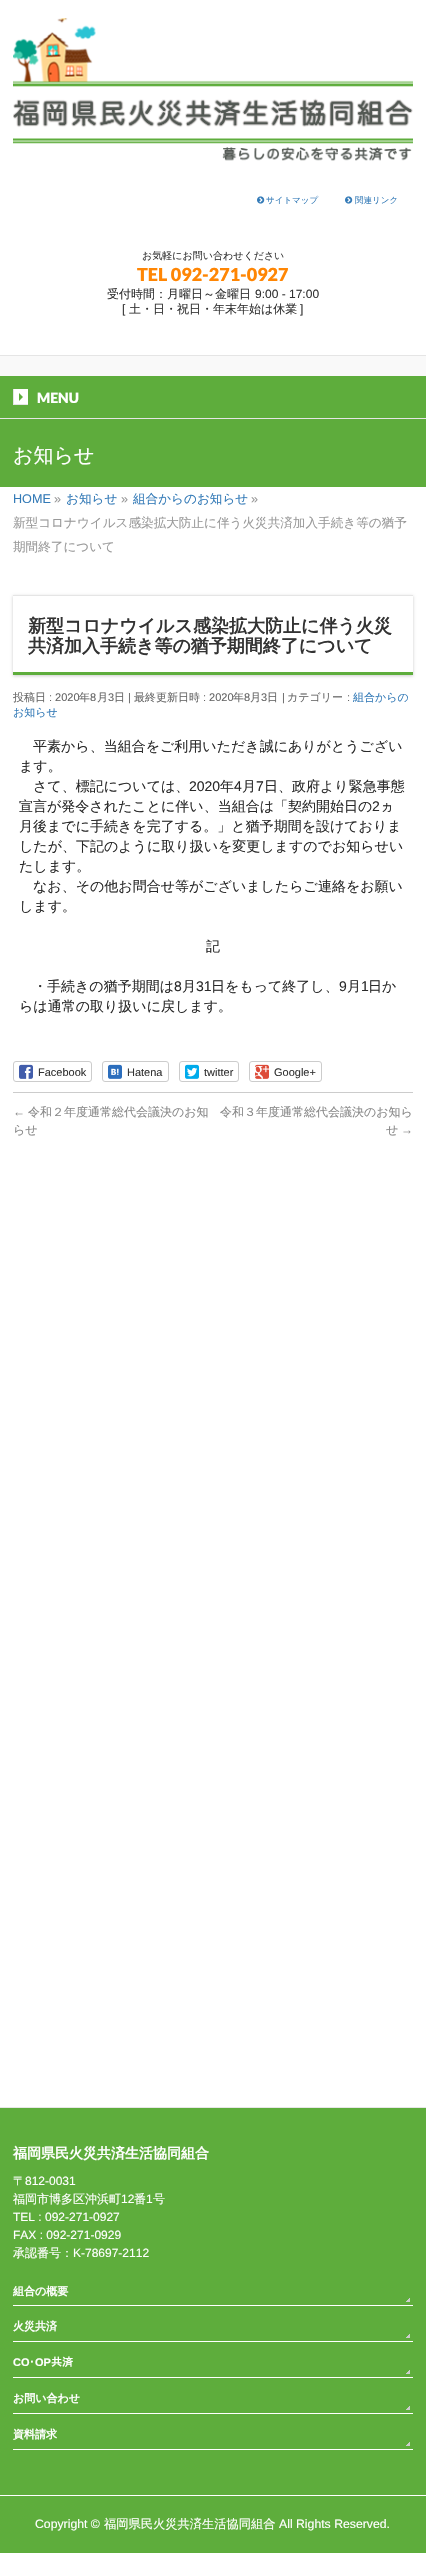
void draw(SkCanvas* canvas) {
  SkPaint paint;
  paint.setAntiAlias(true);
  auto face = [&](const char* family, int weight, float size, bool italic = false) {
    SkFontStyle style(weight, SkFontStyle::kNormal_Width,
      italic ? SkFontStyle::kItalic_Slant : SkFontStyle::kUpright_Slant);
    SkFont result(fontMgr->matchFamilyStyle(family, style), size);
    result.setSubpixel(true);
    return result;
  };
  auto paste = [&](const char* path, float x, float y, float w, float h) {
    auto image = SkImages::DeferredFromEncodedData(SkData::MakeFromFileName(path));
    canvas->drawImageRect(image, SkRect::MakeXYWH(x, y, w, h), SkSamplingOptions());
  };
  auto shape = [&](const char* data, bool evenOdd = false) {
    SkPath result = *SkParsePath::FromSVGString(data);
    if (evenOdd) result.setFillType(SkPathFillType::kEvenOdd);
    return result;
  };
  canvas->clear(0xffffffff);
  paste("img/1.png", 13, 18, 400, 143);
  paste("img/2.png", 257, 196, 8, 8);
  paste("img/2.png", 345, 196, 8, 8);
  {
    const struct { float x, y, w, h; SkColor color; } items[] = {
      {0, 356, 426, 20, 0xfff9f9f9},
      {0, 355, 426, 1, 0xffe5e5e5},
      {0, 418, 426, 1, 0xffe5e5e5},
      {0, 376, 426, 42, 0xff5ead3c},
    };
    for (auto [x, y, w, h, color] : items) {
      paint.setColor(color);
      canvas->drawRect(SkRect::MakeXYWH(x, y, w, h), paint);
    }
  }
  paste("img/3.png", 13, 389, 15, 16);
  paint.setColor(0xff5eac3c);
  canvas->drawRect(SkRect::MakeXYWH(0, 419, 426, 68), paint);
  canvas->save();
  canvas->clipPath(shape("M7 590H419V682H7ZM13 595H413V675H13Z", true), true);
  paint.setColor(0x33000000);
  paint.setMaskFilter(SkMaskFilter::MakeBlur(kNormal_SkBlurStyle, 1.5f));
  canvas->drawRect(SkRect::MakeXYWH(13, 596, 400, 80), paint);
  paint.setMaskFilter(nullptr);
  canvas->restore();
  paint.setColor(0xffe5e5e5);
  canvas->drawRect(SkRect::MakeXYWH(13, 595, 400, 1), paint);
  paint.setColor(0xff5ead3c);
  canvas->drawRect(SkRect::MakeXYWH(13, 672, 400, 3), paint);
  paint.setStroke(true);
  paint.setStrokeWidth(1);
  paint.setColor(0xffcccccc);
  canvas->drawRoundRect(SkRect::MakeXYWH(13.5f, 1061.5f, 78, 20), 2.5f, 2.5f, paint);
  paste("img/4.png", 19, 1064, 14, 15);
  canvas->drawRoundRect(SkRect::MakeXYWH(102.5f, 1061.5f, 66, 20), 2.5f, 2.5f, paint);
  paste("img/5.png", 108, 1064, 14, 15);
  canvas->drawRoundRect(SkRect::MakeXYWH(179.5f, 1061.5f, 59, 20), 2.5f, 2.5f, paint);
  paste("img/6.png", 185, 1064, 14, 15);
  canvas->drawRoundRect(SkRect::MakeXYWH(249.5f, 1061.5f, 72, 20), 2.5f, 2.5f, paint);
  paste("img/7.png", 255, 1064, 14, 15);
  paint.setStroke(false);
  {
    const struct { float x, y, w, h; SkColor color; } items[] = {
      {13, 1092, 400, 1, 0xffcccccc},
      {0, 2107, 426, 1, 0xffe6e6e6},
      {0, 2108, 426, 387, 0xff5ead3c},
    };
    for (auto [x, y, w, h, color] : items) {
      paint.setColor(color);
      canvas->drawRect(SkRect::MakeXYWH(x, y, w, h), paint);
    }
  }
  paste("img/8.png", 406, 2298, 4, 4);
  paint.setColor(0xffffffff);
  canvas->drawRect(SkRect::MakeXYWH(13, 2305, 400, 1), paint);
  paste("img/8.png", 406, 2334, 4, 4);
  canvas->drawRect(SkRect::MakeXYWH(13, 2341, 400, 1), paint);
  paste("img/8.png", 406, 2370, 4, 4);
  canvas->drawRect(SkRect::MakeXYWH(13, 2377, 400, 1), paint);
  paste("img/8.png", 406, 2406, 4, 4);
  canvas->drawRect(SkRect::MakeXYWH(13, 2413, 400, 1), paint);
  paste("img/8.png", 406, 2442, 4, 4);
  canvas->drawRect(SkRect::MakeXYWH(13, 2449, 400, 1), paint);
  paint.setColor(0xff5ead3c);
  canvas->drawRect(SkRect::MakeXYWH(0, 2496, 426, 57), paint);
  auto f0 = face("WenQuanYi Zen Hei", 500, 8.5f);
  paint.setColor(0xff337ab7);
  canvas->drawString("サイトマップ", 266, 203, f0, paint);
  canvas->drawString("関連リンク", 355, 203, f0, paint);
  auto f1 = face("WenQuanYi Zen Hei", 500, 10);
  paint.setColor(0xff333333);
  canvas->drawString("お気軽にお問い合わせください", 142, 259, f1, paint);
  auto f2 = face("Lato", 900, 18);
  paint.setColor(0xffff8604);
  canvas->drawString("TEL 092-271-0927", 137, 281, f2, paint);
  auto f3 = face("WenQuanYi Zen Hei", 500, 12);
  paint.setColor(0xff333333);
  canvas->drawString("受付時間：月曜日～金曜日", 107, 298, f3, paint);
  auto f4 = face("Liberation Sans", 400, 12);
  canvas->drawString("9:00 - 17:00", 255, 298, f4, paint);
  canvas->drawString("[", 122, 313, f4, paint);
  canvas->drawString("土・日・祝日・年末年始は休業", 129, 313, f3, paint);
  canvas->drawString("]", 300, 313, f4, paint);
  auto f5 = face("Lato", 900, 14);
  paint.setColor(0xffffffff);
  canvas->drawString("MENU", 37, 403, f5, paint);
  auto f6 = face("WenQuanYi Zen Hei", 500, 20);
  canvas->drawString("お知らせ", 13, 462, f6, paint);
  auto f7 = face("Liberation Sans", 400, 12.6f);
  paint.setColor(0xff337ab7);
  canvas->drawString("HOME", 13, 503, f7, paint);
  paint.setColor(0xff999999);
  canvas->drawString("»", 54, 503, f7, paint);
  auto f8 = face("WenQuanYi Zen Hei", 500, 12.6f);
  paint.setColor(0xff337ab7);
  canvas->drawString("お知らせ", 66, 503, f8, paint);
  paint.setColor(0xff999999);
  canvas->drawString("»", 121, 503, f7, paint);
  paint.setColor(0xff337ab7);
  canvas->drawString("組合からのお知らせ", 133, 503, f8, paint);
  paint.setColor(0xff999999);
  canvas->drawString("»", 251, 503, f7, paint);
  canvas->drawString("新型コロナウイルス感染拡大防止に伴う火災共済加入手続き等の猶予", 13, 527, f8, paint);
  canvas->drawString("期間終了について", 13, 551, f8, paint);
  auto f9 = face("WenQuanYi Zen Hei", 700, 18);
  paint.setColor(0xff333333);
  canvas->drawString("新型コロナウイルス感染拡大防止に伴う火災", 28, 632, f9, paint);
  canvas->drawString("共済加入手続き等の猶予期間終了について", 28, 652, f9, paint);
  auto f10 = face("WenQuanYi Zen Hei", 500, 11);
  paint.setColor(0xff666666);
  canvas->drawString("投稿日", 13, 701, f10, paint);
  auto f11 = face("Liberation Sans", 400, 11);
  canvas->drawString(": 2020", 49, 701, f11, paint);
  canvas->drawString("年", 79, 701, f10, paint);
  canvas->drawString("8", 90, 701, f11, paint);
  canvas->drawString("月", 97, 701, f10, paint);
  canvas->drawString("3", 108, 701, f11, paint);
  canvas->drawString("日", 114, 701, f10, paint);
  canvas->drawString("|", 128, 701, f11, paint);
  canvas->drawString("最終更新日時", 134, 701, f10, paint);
  canvas->drawString(": 2020", 203, 701, f11, paint);
  canvas->drawString("年", 233, 701, f10, paint);
  canvas->drawString("8", 244, 701, f11, paint);
  canvas->drawString("月", 250, 701, f10, paint);
  canvas->drawString("3", 261, 701, f11, paint);
  canvas->drawString("日", 267, 701, f10, paint);
  canvas->drawString("|", 282, 701, f11, paint);
  canvas->drawString("カテゴリー", 287, 701, f10, paint);
  canvas->drawString(":", 347, 701, f11, paint);
  paint.setColor(0xff337ab7);
  canvas->drawString("組合からの", 353, 701, f10, paint);
  canvas->drawString("お知らせ", 13, 716, f10, paint);
  auto f12 = face("WenQuanYi Zen Hei", 500, 14);
  paint.setColor(0xff2a2a2a);
  {
    const struct { const char* s; float x, y; } items[] = {
      {"平素から、当組合をご利用いただき誠にありがとうござい", 33, 751},
      {"ます。", 19, 771},
      {"さて、標記については、", 33, 791},
    };
    for (auto [s, x, y] : items) {
      canvas->drawString(s, x, y, f12, paint);
    }
  }
  auto f13 = face("Liberation Sans", 400, 14);
  canvas->drawString("2020", 189, 791, f13, paint);
  canvas->drawString("年", 220, 791, f12, paint);
  canvas->drawString("4", 234, 791, f13, paint);
  canvas->drawString("月", 242, 791, f12, paint);
  canvas->drawString("7", 256, 791, f13, paint);
  canvas->drawString("日、政府より緊急事態", 264, 791, f12, paint);
  canvas->drawString("宣言が発令されたことに伴い、当組合は「契約開始日の", 19, 811, f12, paint);
  canvas->drawString("2", 372, 811, f13, paint);
  {
    const struct { const char* s; float x, y; } items[] = {
      {"ヵ", 380, 811},
      {"月後までに手続きを完了する。」と猶予期間を設けておりま", 19, 831},
      {"したが、下記のように取り扱いを変更しますのでお知らせい", 19, 851},
      {"たします。", 19, 871},
      {"なお、その他お問合せ等がございましたらご連絡をお願い", 33, 891},
      {"します。", 19, 911},
      {"記", 206, 951},
      {"・手続きの猶予期間は", 33, 991},
    };
    for (auto [s, x, y] : items) {
      canvas->drawString(s, x, y, f12, paint);
    }
  }
  canvas->drawString("8", 174, 991, f13, paint);
  canvas->drawString("月", 182, 991, f12, paint);
  canvas->drawString("31", 196, 991, f13, paint);
  canvas->drawString("日をもって終了し、", 211, 991, f12, paint);
  canvas->drawString("9", 339, 991, f13, paint);
  canvas->drawString("月", 347, 991, f12, paint);
  canvas->drawString("1", 361, 991, f13, paint);
  canvas->drawString("日か", 368, 991, f12, paint);
  canvas->drawString("らは通常の取り扱いに戻します。", 19, 1011, f12, paint);
  paint.setColor(0xff333333);
  {
    const struct { const char* s; float x, y; } items[] = {
      {"Facebook", 38, 1076},
      {"Hatena", 127, 1076},
      {"twitter", 204, 1076},
      {"Google+", 274, 1076},
    };
    for (auto [s, x, y] : items) {
      canvas->drawString(s, x, y, f11, paint);
    }
  }
  paint.setColor(0xff888888);
  canvas->drawString("←", 13, 1116, f4, paint);
  {
    const struct { const char* s; float x, y; } items[] = {
      {"令和２年度通常総代会議決のお知", 28, 1116},
      {"らせ", 13, 1134},
      {"令和３年度通常総代会議決のお知ら", 220, 1116},
      {"せ", 386, 1134},
    };
    for (auto [s, x, y] : items) {
      canvas->drawString(s, x, y, f3, paint);
    }
  }
  canvas->drawString("→", 401, 1134, f4, paint);
  auto f14 = face("WenQuanYi Zen Hei", 700, 14);
  paint.setColor(0xffffffff);
  canvas->drawString("福岡県民火災共済生活協同組合", 13, 2158, f14, paint);
  canvas->drawString("〒", 13, 2185, f3, paint);
  canvas->drawString("812-0031", 25, 2185, f4, paint);
  canvas->drawString("福岡市博多区沖浜町", 13, 2203, f3, paint);
  canvas->drawString("12", 121, 2203, f4, paint);
  canvas->drawString("番", 134, 2203, f3, paint);
  canvas->drawString("1", 146, 2203, f4, paint);
  canvas->drawString("号", 153, 2203, f3, paint);
  canvas->drawString("TEL : 092-271-0927", 13, 2221, f4, paint);
  canvas->drawString("FAX : 092-271-0929", 13, 2239, f4, paint);
  canvas->drawString("承認番号：", 13, 2257, f3, paint);
  canvas->drawString("K-78697-2112", 73, 2257, f4, paint);
  auto f15 = face("WenQuanYi Zen Hei", 700, 11);
  canvas->drawString("組合の概要", 13, 2295, f15, paint);
  canvas->drawString("火災共済", 13, 2330, f15, paint);
  auto f16 = face("Liberation Sans", 700, 11);
  canvas->drawString("CO", 13, 2366, f16, paint);
  auto f17 = face("IPAPGothic", 700, 11);
  canvas->drawString("･", 29, 2366, f17, paint);
  canvas->drawString("OP", 35, 2366, f16, paint);
  canvas->drawString("共済", 51, 2366, f17, paint);
  canvas->drawString("お問い合わせ", 13, 2402, f15, paint);
  canvas->drawString("資料請求", 13, 2438, f15, paint);
  auto f18 = face("Liberation Sans", 400, 12.25f);
  canvas->drawString("Copyright ©", 35, 2528, f18, paint);
  auto f19 = face("WenQuanYi Zen Hei", 500, 12.25f);
  canvas->drawString("福岡県民火災共済生活協同組合", 104, 2528, f19, paint);
  canvas->drawString("All Rights Reserved.", 279, 2528, f18, paint);
}
